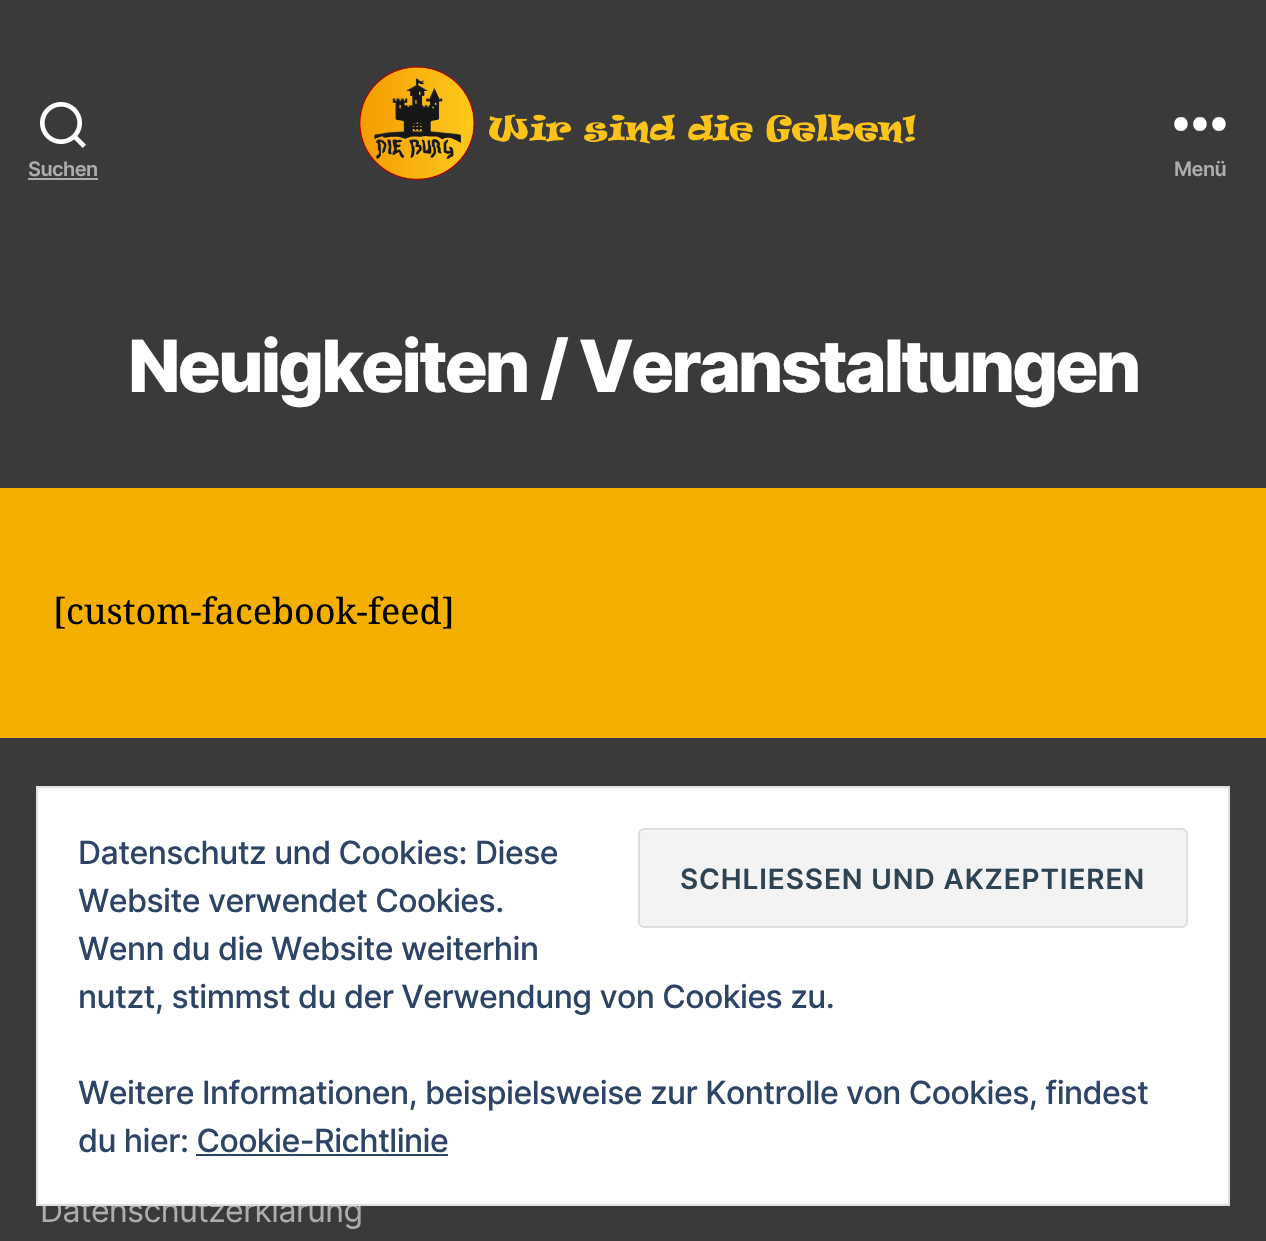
void draw(SkCanvas* canvas) {
  SkPaint paint;
  paint.setAntiAlias(true);
  auto face = [&](const char* family, int weight, float size, bool italic = false) {
    SkFontStyle style(weight, SkFontStyle::kNormal_Width,
      italic ? SkFontStyle::kItalic_Slant : SkFontStyle::kUpright_Slant);
    SkFont result(fontMgr->matchFamilyStyle(family, style), size);
    result.setSubpixel(true);
    return result;
  };
  auto writeSpaced = [&](const char* s, float x, float y, const SkFont& font, const SkPaint& ink, float letter, float word) {
    std::vector<SkGlyphID> glyphs(font.countText(s, strlen(s), SkTextEncoding::kUTF8));
    std::vector<float> xs(glyphs.size());
    font.textToGlyphs(s, strlen(s), SkTextEncoding::kUTF8, glyphs);
    font.getXPos(glyphs, xs, x);
    float extra = 0;
    for (size_t i = 0; i < glyphs.size(); i++) {
      xs[i] += extra;
      extra += letter + word * (glyphs[i] == font.unicharToGlyph(' '));
    }
    canvas->drawTextBlob(SkTextBlob::MakeFromPosHGlyphs(glyphs, xs, y, font), 0, 0, ink);
  };
  auto paste = [&](const char* path, float x, float y, float w, float h) {
    auto image = SkImages::DeferredFromEncodedData(SkData::MakeFromFileName(path));
    canvas->drawImageRect(image, SkRect::MakeXYWH(x, y, w, h), SkSamplingOptions());
  };
  auto shape = [&](const char* data, bool evenOdd = false) {
    SkPath result = *SkParsePath::FromSVGString(data);
    if (evenOdd) result.setFillType(SkPathFillType::kEvenOdd);
    return result;
  };
  canvas->clear(0xfff4af00);
  paint.setColor(0xff3a3a3a);
  canvas->drawRect(SkRect::MakeXYWH(0, 0, 1266, 488), paint);
  paste("img/1.png", 40, 102, 46, 46);
  paint.setColor(0xffadadad);
  canvas->drawRect(SkRect::MakeXYWH(28, 178, 70, 2), paint);
  paste("img/2.png", 359, 66, 557, 115);
  paint.setColor(0xffffffff);
  canvas->drawPath(shape("M1181 131C1172 131 1172 117 1181 117C1190 117 1190 131 1181 131ZM1200 131C1191 131 1191 117 1200 117C1209 117 1209 131 1200 131ZM1219 131C1210 131 1210 117 1219 117C1228 117 1228 131 1219 131Z", true), paint);
  paint.setColor(0xff3a3a3a);
  canvas->drawRect(SkRect::MakeXYWH(0, 738, 1266, 503), paint);
  auto f0 = face("Inter", 600, 20);
  paint.setColor(0xffadadad);
  writeSpaced("Suchen", 28, 176, f0, paint, -0.55f, 0);
  writeSpaced("Menü", 1174, 176, f0, paint, -0.55f, 0);
  auto f1 = face("Inter", 800, 72);
  paint.setColor(0xffffffff);
  writeSpaced("Neuigkeiten / Veranstaltungen", 128, 392, f1, paint, -3, 0);
  auto f2 = face("Noto Serif", 400, 36);
  paint.setColor(0xff000000);
  canvas->drawString("[custom-facebook-feed]", 53, 624, f2, paint);
  auto f3 = face("Inter", 400, 32);
  paint.setColor(0xffadadad);
  writeSpaced("Datenschutzerklärung", 40, 1222, f3, paint, -0.55f, 0);
  paint.setColor(0xffffffff);
  canvas->drawRect(SkRect::MakeXYWH(37, 787, 1192, 418), paint);
  paint.setStroke(true);
  paint.setStrokeWidth(2);
  paint.setColor(0xffdedede);
  canvas->drawRect(SkRect::MakeXYWH(37, 787, 1192, 418), paint);
  paint.setStroke(false);
  paint.setColor(0xfff3f3f3);
  canvas->drawRoundRect(SkRect::MakeXYWH(639, 829, 548, 98), 5, 5, paint);
  paint.setStroke(true);
  paint.setColor(0xffdedede);
  canvas->drawRoundRect(SkRect::MakeXYWH(639, 829, 548, 98), 5, 5, paint);
  auto f4 = face("Inter", 600, 28);
  paint.setStroke(false);
  paint.setColor(0xff2e4453);
  writeSpaced("SCHLIESSEN UND AKZEPTIEREN", 680, 889, f4, paint, 0.9f, 0);
  paint.setColor(0xff2e4467);
  canvas->drawRect(SkRect::MakeXYWH(196, 1154, 252, 2), paint);
  auto f5 = face("Inter", 500, 32);
  {
    const struct { const char* s; float x, y; } items[] = {
      {"du hier: Cookie-Richtlinie", 78, 1152},
      {"Weitere Informationen, beispielsweise zur Kontrolle von Cookies, findest", 78, 1104},
      {"nutzt, stimmst du der Verwendung von Cookies zu.", 78, 1008},
      {"Wenn du die Website weiterhin", 78, 960},
      {"Website verwendet Cookies.", 78, 912},
      {"Datenschutz und Cookies: Diese", 78, 864},
    };
    for (auto [s, x, y] : items) {
      writeSpaced(s, x, y, f5, paint, -0.55f, 0);
    }
  }
}
